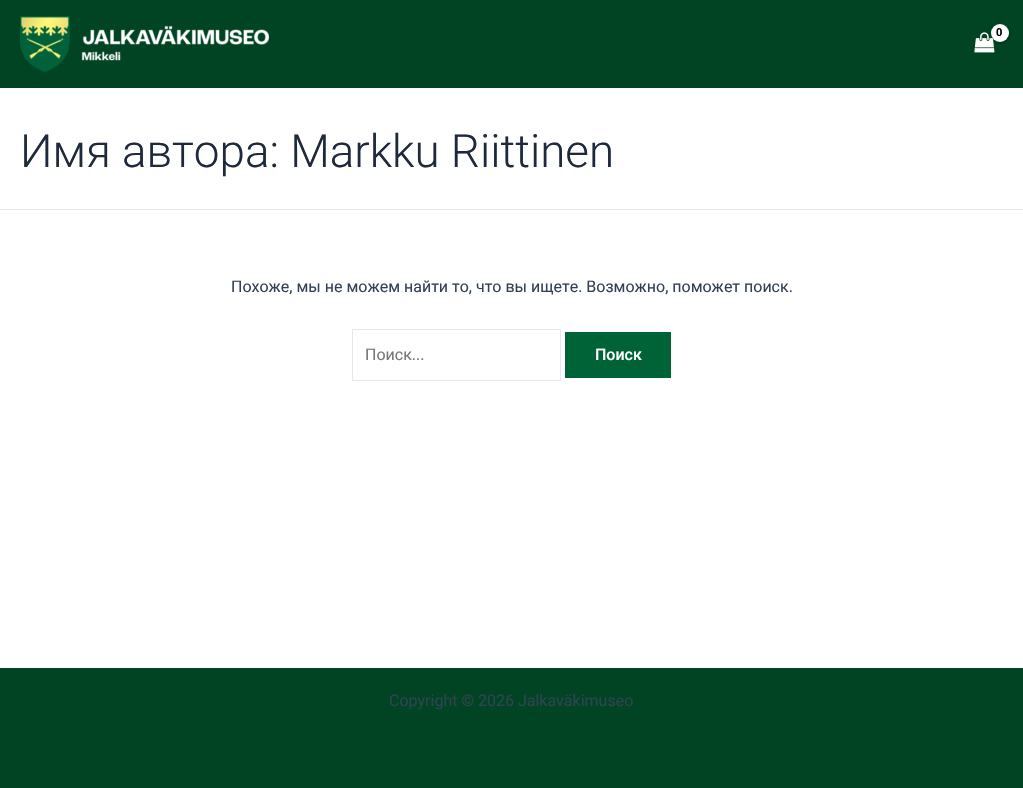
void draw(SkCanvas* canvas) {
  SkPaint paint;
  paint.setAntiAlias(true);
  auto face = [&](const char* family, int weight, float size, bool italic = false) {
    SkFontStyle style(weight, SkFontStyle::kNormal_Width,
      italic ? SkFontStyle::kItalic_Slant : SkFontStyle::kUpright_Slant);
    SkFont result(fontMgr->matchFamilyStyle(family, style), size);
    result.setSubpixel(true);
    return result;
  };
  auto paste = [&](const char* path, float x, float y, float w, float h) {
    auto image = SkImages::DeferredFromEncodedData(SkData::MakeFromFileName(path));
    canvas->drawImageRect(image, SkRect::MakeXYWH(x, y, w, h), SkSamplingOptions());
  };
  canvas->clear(0xffffffff);
  paint.setColor(0xff004423);
  canvas->drawRect(SkRect::MakeXYWH(0, 0, 1023, 88), paint);
  paste("img/1.png", 20, 16, 249, 56);
  paste("img/2.png", 974, 32, 21, 21);
  paint.setColor(0x4d000000);
  paint.setMaskFilter(SkMaskFilter::MakeBlur(kNormal_SkBlurStyle, 1.5f));
  canvas->drawRoundRect(SkRect::MakeXYWH(992, 25, 18, 18), 9, 9, paint);
  paint.setMaskFilter(nullptr);
  paint.setColor(0xffffffff);
  canvas->drawCircle(1000, 33, 9, paint);
  paint.setColor(0xffe2e8f0);
  canvas->drawRect(SkRect::MakeXYWH(0, 209, 1023, 1), paint);
  paint.setStroke(true);
  paint.setStrokeWidth(1);
  canvas->drawRect(SkRect::MakeXYWH(352.5f, 329.5f, 208, 51), paint);
  paint.setStroke(false);
  paint.setColor(0xff006337);
  canvas->drawRect(SkRect::MakeXYWH(565, 332, 106, 46), paint);
  paint.setColor(0xff004423);
  canvas->drawRect(SkRect::MakeXYWH(0, 668, 1023, 120), paint);
  auto f0 = face("Roboto", 700, 11);
  paint.setColor(0xff000000);
  canvas->drawString("0", 996, 36, f0, paint);
  auto f1 = face("Roboto", 300, 45.75f);
  paint.setColor(0xff1e293b);
  canvas->drawString("Имя автора: Markku Riittinen", 20, 167, f1, paint);
  auto f2 = face("Roboto", 400, 16);
  paint.setColor(0xff334155);
  canvas->drawString("Похоже, мы не можем найти то, что вы ищете. Возможно, поможет поиск.", 231, 292, f2, paint);
  paint.setColor(0xff757575);
  canvas->drawString("Поиск...", 365, 360, f2, paint);
  auto f3 = face("Roboto", 500, 16);
  paint.setColor(0xffffffff);
  canvas->drawString("Поиск", 595, 360, f3, paint);
  paint.setColor(0xff334155);
  canvas->drawString("Copyright © 2026 Jalkaväkimuseo", 389, 706, f2, paint);
}
